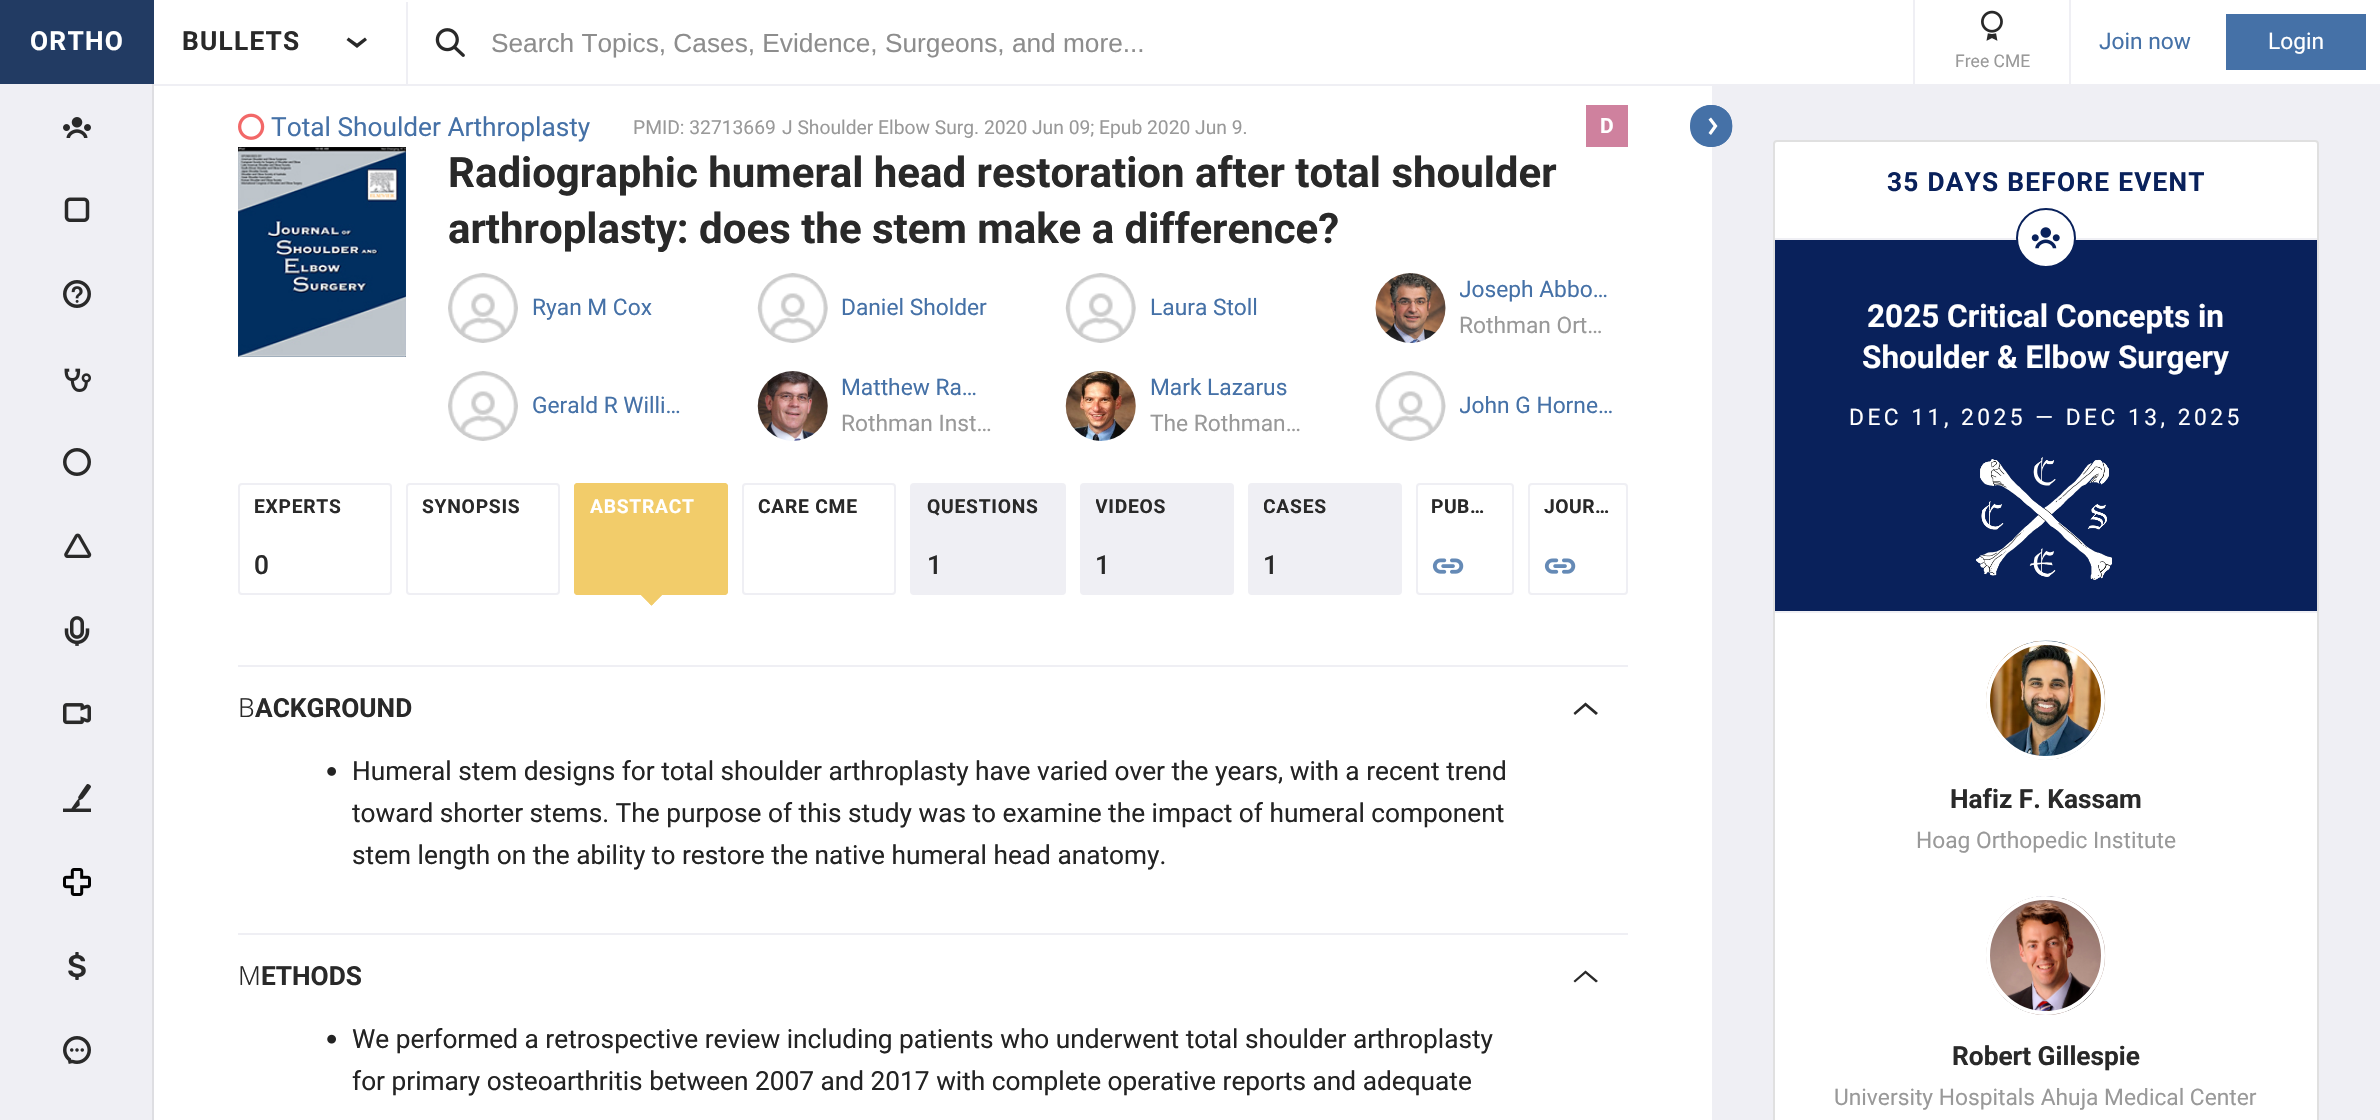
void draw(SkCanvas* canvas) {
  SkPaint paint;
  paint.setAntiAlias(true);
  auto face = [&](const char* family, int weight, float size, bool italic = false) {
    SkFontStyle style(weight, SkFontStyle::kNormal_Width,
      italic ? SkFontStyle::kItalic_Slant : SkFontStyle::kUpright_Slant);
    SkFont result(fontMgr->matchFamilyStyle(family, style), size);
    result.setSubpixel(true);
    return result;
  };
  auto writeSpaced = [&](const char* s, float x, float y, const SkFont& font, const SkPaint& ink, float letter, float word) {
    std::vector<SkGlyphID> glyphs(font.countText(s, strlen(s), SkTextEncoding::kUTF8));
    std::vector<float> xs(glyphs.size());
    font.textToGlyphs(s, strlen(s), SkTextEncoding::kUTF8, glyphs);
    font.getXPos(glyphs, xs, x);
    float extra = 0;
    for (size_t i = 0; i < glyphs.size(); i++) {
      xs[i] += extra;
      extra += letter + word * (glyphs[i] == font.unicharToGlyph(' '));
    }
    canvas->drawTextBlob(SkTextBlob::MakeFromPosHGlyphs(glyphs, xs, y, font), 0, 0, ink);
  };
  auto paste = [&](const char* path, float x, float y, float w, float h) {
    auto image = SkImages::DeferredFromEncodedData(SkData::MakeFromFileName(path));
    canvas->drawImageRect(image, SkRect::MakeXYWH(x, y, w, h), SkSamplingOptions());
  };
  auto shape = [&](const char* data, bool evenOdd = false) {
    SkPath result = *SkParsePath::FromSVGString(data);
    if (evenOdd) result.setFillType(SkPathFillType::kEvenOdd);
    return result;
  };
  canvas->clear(0xffefeff4);
  paint.setColor(0xffffffff);
  canvas->drawRect(SkRect::MakeXYWH(154, 0, 2226, 84), paint);
  paint.setColor(0xff223b63);
  canvas->drawRect(SkRect::MakeXYWH(0, 0, 154, 84), paint);
  paint.setColor(0xff292929);
  canvas->drawPath(shape("M348.5 37.5L346.5 40L357 48L367 40L365 37.5L357 43.5Z"), paint);
  paint.setColor(0xffefeff4);
  canvas->drawRect(SkRect::MakeXYWH(406, 2, 2, 82), paint);
  paste("img/1.png", 435, 28, 30, 29);
  {
    const struct { float x, y, w, h; SkColor color; } items[] = {
      {2226, 14, 140, 56, 0xff4571a7},
      {1913, 0, 2, 84, 0xffefeff4},
      {2069, 0, 2, 84, 0xffefeff4},
    };
    for (auto [x, y, w, h, color] : items) {
      paint.setColor(color);
      canvas->drawRect(SkRect::MakeXYWH(x, y, w, h), paint);
    }
  }
  paste("img/2.png", 1981, 10, 22, 31);
  paint.setColor(0xffdedee2);
  canvas->drawRect(SkRect::MakeXYWH(152, 84, 2, 1036), paint);
  paste("img/3.png", 63, 117, 28, 21);
  paste("img/4.png", 64, 197, 26, 25);
  paste("img/5.png", 63, 280, 28, 28);
  paste("img/6.png", 64, 368, 27, 24);
  paste("img/7.png", 63, 448, 28, 28);
  paste("img/8.png", 64, 533, 28, 25);
  paste("img/9.png", 64, 616, 26, 30);
  paste("img/10.png", 63, 703, 28, 22);
  paste("img/11.png", 63, 784, 28, 28);
  paste("img/12.png", 63, 868, 28, 28);
  paste("img/13.png", 68, 952, 18, 28);
  paste("img/14.png", 63, 1036, 28, 28);
  paint.setColor(0xffffffff);
  canvas->drawRect(SkRect::MakeXYWH(154, 86, 1558, 1034), paint);
  paste("img/15.png", 238, 113, 27, 27);
  paint.setColor(0xffcf819e);
  canvas->drawRect(SkRect::MakeXYWH(1586, 105, 42, 42), paint);
  paste("img/16.png", 238, 147, 168, 210);
  paste("img/17.png", 448, 273, 70, 70);
  paste("img/18.png", 757, 273, 71, 70);
  paste("img/19.png", 1065, 273, 71, 70);
  paste("img/20.png", 1375, 273, 71, 70);
  paste("img/17.png", 448, 371, 70, 70);
  paste("img/21.png", 757, 371, 71, 70);
  paste("img/22.png", 1065, 371, 71, 70);
  paste("img/23.png", 1375, 371, 71, 70);
  paint.setStroke(true);
  paint.setStrokeWidth(2);
  paint.setColor(0xffefeff4);
  canvas->drawRoundRect(SkRect::MakeXYWH(239, 484, 152, 110), 3, 3, paint);
  canvas->drawRoundRect(SkRect::MakeXYWH(407, 484, 152, 110), 3, 3, paint);
  paint.setStroke(false);
  paint.setColor(0xfff2cc6a);
  canvas->drawRoundRect(SkRect::MakeXYWH(575, 484, 152, 110), 3, 3, paint);
  paint.setStroke(true);
  canvas->drawRoundRect(SkRect::MakeXYWH(575, 484, 152, 110), 3, 3, paint);
  paint.setStrokeWidth(4);
  canvas->drawRoundRect(SkRect::MakeXYWH(576, 485, 150, 108), 2, 2, paint);
  paint.setStroke(false);
  canvas->drawPath(shape("M651.5 581L664 593L651.5 605.5L639 593Z"), paint);
  canvas->drawPath(shape("M661.5 590.5L664 593L651.5 605.5L649 603Z"), paint);
  canvas->drawPath(shape("M641.5 590.5L654 603L651.5 605.5L639 593Z"), paint);
  paint.setStroke(true);
  paint.setStrokeWidth(2);
  paint.setColor(0xffefeff4);
  canvas->drawRoundRect(SkRect::MakeXYWH(743, 484, 152, 110), 3, 3, paint);
  paint.setStroke(false);
  canvas->drawRoundRect(SkRect::MakeXYWH(911, 484, 154, 110), 3, 3, paint);
  paint.setStroke(true);
  canvas->drawRoundRect(SkRect::MakeXYWH(911, 484, 154, 110), 3, 3, paint);
  paint.setStroke(false);
  canvas->drawRoundRect(SkRect::MakeXYWH(1081, 484, 152, 110), 3, 3, paint);
  paint.setStroke(true);
  canvas->drawRoundRect(SkRect::MakeXYWH(1081, 484, 152, 110), 3, 3, paint);
  paint.setStroke(false);
  canvas->drawRoundRect(SkRect::MakeXYWH(1249, 484, 152, 110), 3, 3, paint);
  paint.setStroke(true);
  canvas->drawRoundRect(SkRect::MakeXYWH(1249, 484, 152, 110), 3, 3, paint);
  canvas->drawRoundRect(SkRect::MakeXYWH(1417, 484, 96, 110), 3, 3, paint);
  paste("img/24.png", 1432, 558, 32, 16);
  canvas->drawRoundRect(SkRect::MakeXYWH(1529, 484, 98, 110), 3, 3, paint);
  paste("img/24.png", 1544, 558, 32, 16);
  paint.setStroke(false);
  canvas->drawRect(SkRect::MakeXYWH(238, 665, 1390, 2), paint);
  paint.setColor(0xff292929);
  canvas->drawPath(shape("M1596 715L1598 713L1585.5 702.5L1573.5 713L1575 715L1585.5 706Z"), paint);
  paste("img/25.png", 327, 767, 9, 9);
  paint.setColor(0xffefeff4);
  canvas->drawRect(SkRect::MakeXYWH(238, 933, 1390, 2), paint);
  paint.setColor(0xff292929);
  canvas->drawPath(shape("M1596 982.5L1598 981L1585.5 970.5L1573.5 981L1575 982.5L1585.5 973.5Z"), paint);
  paste("img/26.png", 327, 1034, 9, 10);
  paint.setColor(0xff4571a7);
  canvas->drawPath(shape("M1690 126C1690 98 1732 98 1732 126C1732 154 1690 154 1690 126Z"), paint);
  paint.setStroke(true);
  paint.setStrokeWidth(1.8f);
  canvas->drawPath(shape("M1691.5 126C1691.5 99.5 1731.5 99.5 1731.5 126C1731.5 152.5 1691.5 152.5 1691.5 126Z"), paint);
  paint.setStroke(false);
  paint.setColor(0xffffffff);
  canvas->drawPath(shape("M1708.5 133L1711 135L1717.5 126L1711 117.5L1708.5 119.5L1713.5 126Z"), paint);
  canvas->drawRoundRect(SkRect::MakeXYWH(1773, 140, 546, 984), 4, 4, paint);
  paint.setStroke(true);
  paint.setStrokeWidth(2);
  paint.setColor(0x4d999999);
  canvas->drawRoundRect(SkRect::MakeXYWH(1774, 141, 544, 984), 3, 3, paint);
  paint.setStroke(false);
  paint.setColor(0xffefeff4);
  canvas->drawRect(SkRect::MakeXYWH(1775, 238, 542, 2), paint);
  paint.setColor(0xff09215b);
  canvas->drawRect(SkRect::MakeXYWH(1775, 240, 542, 371), paint);
  paint.setColor(0xffffffff);
  canvas->drawCircle(2046, 238, 29, paint);
  paint.setStroke(true);
  paint.setColor(0xff09215b);
  canvas->drawCircle(2046, 238, 29, paint);
  paste("img/27.png", 2031, 227, 29, 22);
  paint.setStroke(false);
  paint.setColor(0xffefeff4);
  canvas->drawRect(SkRect::MakeXYWH(1775, 611, 542, 2), paint);
  paste("img/28.png", 1976, 457, 137, 123);
  paste("img/29.png", 1986, 640, 120, 120);
  paint.setStroke(true);
  paint.setStrokeWidth(4);
  paint.setColor(0xffffffff);
  canvas->drawCircle(2045.5f, 700.5f, 57.5f, paint);
  paste("img/30.png", 1986, 896, 120, 119);
  canvas->drawCircle(2045.5f, 955.5f, 57.5f, paint);
  auto f0 = face("Roboto", 700, 26.25f);
  paint.setStroke(false);
  writeSpaced("ORTHO", 30, 50, f0, paint, 1.25f, 0);
  paint.setColor(0xff292929);
  writeSpaced("BULLETS", 182, 50, f0, paint, 1.25f, 0);
  auto f1 = face("Liberation Sans", 400, 26.25f);
  paint.setColor(0xff8d8d8d);
  canvas->drawString("Search Topics, Cases, Evidence, Surgeons, and more...", 491, 52, f1, paint);
  auto f2 = face("Roboto", 400, 22.75f);
  paint.setColor(0xff4571a7);
  canvas->drawString("Join now", 2099, 49, f2, paint);
  paint.setColor(0xffffffff);
  canvas->drawString("Login", 2268, 49, f2, paint);
  auto f3 = face("Roboto", 400, 17.5f);
  paint.setColor(0xff999999);
  canvas->drawString("Free CME", 1955, 67, f3, paint);
  auto f4 = face("Roboto", 400, 26.25f);
  paint.setColor(0xff4571a7);
  canvas->drawString("Total Shoulder Arthroplasty", 271, 136, f4, paint);
  auto f5 = face("Roboto", 400, 19.25f);
  paint.setColor(0xff999999);
  canvas->drawString("PMID: 32713669", 633, 134, f5, paint);
  canvas->drawString("J Shoulder Elbow Surg. 2020 Jun 09; Epub 2020 Jun 9.", 782, 134, f5, paint);
  auto f6 = face("Roboto", 700, 21);
  paint.setColor(0xffffffff);
  canvas->drawString("D", 1600, 133, f6, paint);
  auto f7 = face("Roboto", 700, 42);
  paint.setColor(0xff292929);
  canvas->drawString("Radiographic humeral head restoration after total shoulder", 448, 187, f7, paint);
  canvas->drawString("arthroplasty: does the stem make a difference?", 448, 243, f7, paint);
  paint.setColor(0xff4571a7);
  {
    const struct { const char* s; float x, y; } items[] = {
      {"Ryan M Cox", 532, 315},
      {"Daniel Sholder", 841, 315},
      {"Laura Stoll", 1150, 315},
    };
    for (auto [s, x, y] : items) {
      canvas->drawString(s, x, y, f2, paint);
    }
  }
  canvas->save();
  canvas->clipRect(SkRect::MakeXYWH(1460, 277, 154, 63));
  canvas->drawString("Joseph Abbo…", 1459, 297, f2, paint);
  canvas->restore();
  paint.setColor(0xff999999);
  canvas->drawString("Rothman Ort…", 1459, 333, f2, paint);
  paint.setColor(0xff4571a7);
  canvas->drawString("Gerald R Willi…", 532, 413, f2, paint);
  canvas->drawString("Matthew Ra…", 841, 395, f2, paint);
  paint.setColor(0xff999999);
  canvas->drawString("Rothman Inst…", 841, 431, f2, paint);
  paint.setColor(0xff4571a7);
  canvas->drawString("Mark Lazarus", 1150, 395, f2, paint);
  paint.setColor(0xff999999);
  canvas->drawString("The Rothman…", 1150, 431, f2, paint);
  canvas->save();
  canvas->clipRect(SkRect::MakeXYWH(1460, 392, 154, 28));
  paint.setColor(0xff4571a7);
  canvas->drawString("John G Horne…", 1459, 413, f2, paint);
  canvas->restore();
  auto f8 = face("Roboto", 700, 19.25f);
  paint.setColor(0xff292929);
  writeSpaced("EXPERTS", 254, 513, f8, paint, 0.75f, 0);
  auto f9 = face("Roboto", 500, 26.25f);
  writeSpaced("0", 254, 574, f9, paint, 0.75f, 0);
  writeSpaced("SYNOPSIS", 422, 513, f8, paint, 0.75f, 0);
  paint.setColor(0xffffffff);
  writeSpaced("ABSTRACT", 590, 513, f8, paint, 0.75f, 0);
  paint.setColor(0xff292929);
  writeSpaced("CARE CME", 758, 513, f8, paint, 0.75f, 0);
  writeSpaced("QUESTIONS", 927, 513, f8, paint, 0.75f, 0);
  writeSpaced("1", 927, 574, f9, paint, 0.75f, 0);
  canvas->save();
  canvas->clipRect(SkRect::MakeXYWH(1096, 499, 122, 17));
  writeSpaced("VIDEOS", 1095, 513, f8, paint, 0.75f, 0);
  canvas->restore();
  writeSpaced("1", 1095, 574, f9, paint, 0.75f, 0);
  canvas->save();
  canvas->clipRect(SkRect::MakeXYWH(1264, 499, 122, 17));
  writeSpaced("CASES", 1263, 513, f8, paint, 0.75f, 0);
  canvas->restore();
  writeSpaced("1", 1263, 574, f9, paint, 0.75f, 0);
  writeSpaced("PUB…", 1431, 513, f8, paint, 0.5f, 0);
  writeSpaced("JOUR…", 1544, 513, f8, paint, 0.5f, 0);
  auto f10 = face("Noto Sans", 300, 26.25f);
  canvas->drawString("B", 238, 717, f10, paint);
  canvas->drawString("ACKGROUND", 255, 717, f0, paint);
  paint.setColor(0xff232323);
  {
    const struct { const char* s; float x, y; } items[] = {
      {"Humeral stem designs for total shoulder arthroplasty have varied over the years, with a recent trend", 352, 780},
      {"toward shorter stems. The purpose of this study was to examine the impact of humeral component", 352, 822},
      {"stem length on the ability to restore the native humeral head anatomy.", 352, 864},
    };
    for (auto [s, x, y] : items) {
      canvas->drawString(s, x, y, f4, paint);
    }
  }
  paint.setColor(0xff292929);
  canvas->drawString("M", 238, 985, f10, paint);
  canvas->drawString("ETHODS", 261, 985, f0, paint);
  paint.setColor(0xff232323);
  canvas->drawString("We performed a retrospective review including patients who underwent total shoulder arthroplasty", 352, 1048, f4, paint);
  canvas->drawString("for primary osteoarthritis between 2007 and 2017 with complete operative reports and adequate", 352, 1090, f4, paint);
  paint.setColor(0xff09215b);
  writeSpaced("35 DAYS BEFORE EVENT", 1887, 191, f0, paint, 1.25f, 0);
  auto f11 = face("Roboto", 700, 31.5f);
  paint.setColor(0xffffffff);
  canvas->drawString("2025 Critical Concepts in", 1867, 327, f11, paint);
  canvas->drawString("Shoulder & Elbow Surgery", 1862, 368, f11, paint);
  writeSpaced("DEC 11, 2025 — DEC 13, 2025", 1849, 425, f2, paint, 3.5f, 0);
  paint.setColor(0xff292929);
  canvas->drawString("Hafiz F. Kassam", 1950, 808, f0, paint);
  paint.setColor(0xff999999);
  canvas->drawString("Hoag Orthopedic Institute", 1916, 848, f2, paint);
  paint.setColor(0xff292929);
  canvas->drawString("Robert Gillespie", 1952, 1065, f0, paint);
  paint.setColor(0xff999999);
  canvas->drawString("University Hospitals Ahuja Medical Center", 1834, 1105, f2, paint);
}
